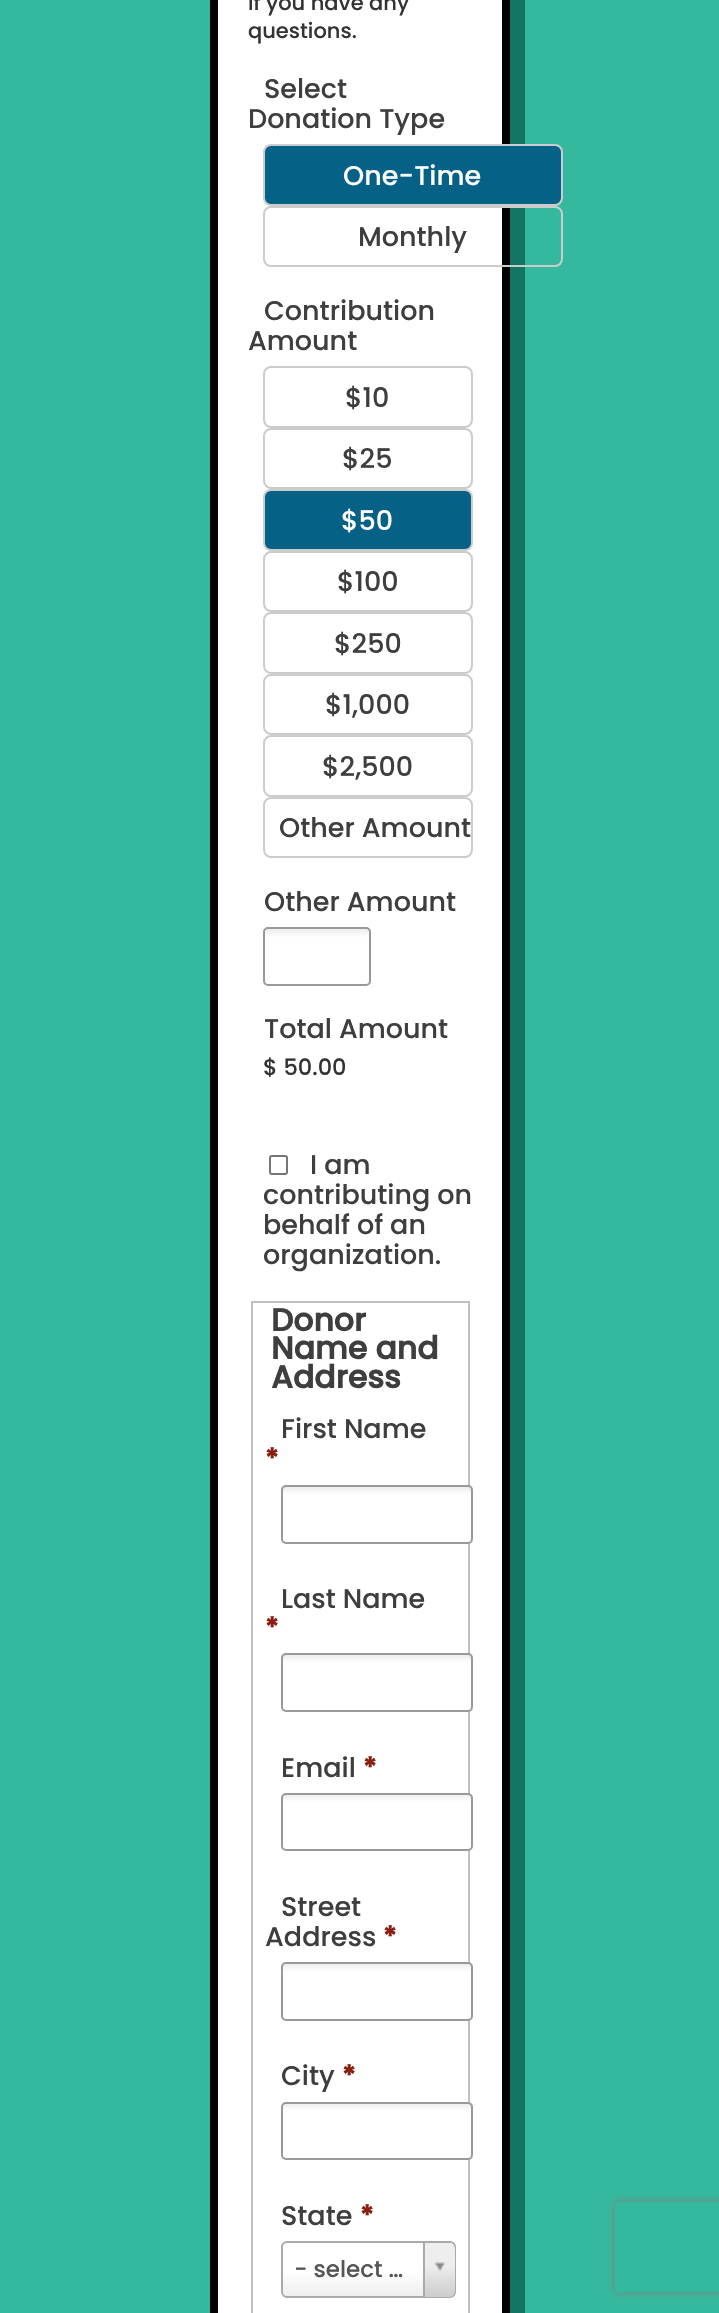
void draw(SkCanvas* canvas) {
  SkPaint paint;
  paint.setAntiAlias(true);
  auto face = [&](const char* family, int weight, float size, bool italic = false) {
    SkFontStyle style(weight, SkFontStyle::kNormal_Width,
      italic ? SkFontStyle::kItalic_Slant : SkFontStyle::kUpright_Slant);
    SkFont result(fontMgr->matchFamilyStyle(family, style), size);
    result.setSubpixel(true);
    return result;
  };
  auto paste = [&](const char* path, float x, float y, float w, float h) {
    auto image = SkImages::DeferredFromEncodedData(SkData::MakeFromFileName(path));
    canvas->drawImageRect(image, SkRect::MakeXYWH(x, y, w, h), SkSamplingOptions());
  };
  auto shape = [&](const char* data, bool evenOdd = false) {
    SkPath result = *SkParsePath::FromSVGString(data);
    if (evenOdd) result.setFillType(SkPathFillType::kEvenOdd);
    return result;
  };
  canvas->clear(0xff34b99e);
  paint.setColor(0xff127562);
  canvas->drawPath(shape("M225 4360V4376H525V-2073H510V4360Z"), paint);
  paint.setColor(0xffffffff);
  canvas->drawRect(SkRect::MakeXYWH(214, -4, 292, 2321), paint);
  paint.setStroke(true);
  paint.setStrokeWidth(8);
  paint.setColor(0xff000000);
  canvas->drawRect(SkRect::MakeXYWH(214, -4, 292, 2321), paint);
  paint.setStroke(false);
  paint.setColor(0xff056186);
  canvas->drawRoundRect(SkRect::MakeXYWH(264, 145, 298, 60), 7, 7, paint);
  paint.setStroke(true);
  paint.setStrokeWidth(2);
  paint.setColor(0xffcccccc);
  canvas->drawRoundRect(SkRect::MakeXYWH(264, 145, 298, 60), 7, 7, paint);
  canvas->drawRoundRect(SkRect::MakeXYWH(264, 207, 298, 59), 7, 7, paint);
  canvas->drawRoundRect(SkRect::MakeXYWH(264, 367, 208, 60), 7, 7, paint);
  canvas->drawRoundRect(SkRect::MakeXYWH(264, 429, 208, 59), 7, 7, paint);
  paint.setStroke(false);
  paint.setColor(0xff056186);
  canvas->drawRoundRect(SkRect::MakeXYWH(264, 490, 208, 60), 7, 7, paint);
  paint.setStroke(true);
  paint.setColor(0xffcccccc);
  canvas->drawRoundRect(SkRect::MakeXYWH(264, 490, 208, 60), 7, 7, paint);
  canvas->drawRoundRect(SkRect::MakeXYWH(264, 552, 208, 59), 7, 7, paint);
  canvas->drawRoundRect(SkRect::MakeXYWH(264, 613, 208, 60), 7, 7, paint);
  canvas->drawRoundRect(SkRect::MakeXYWH(264, 675, 208, 59), 7, 7, paint);
  canvas->drawRoundRect(SkRect::MakeXYWH(264, 736, 208, 60), 7, 7, paint);
  canvas->drawRoundRect(SkRect::MakeXYWH(264, 798, 208, 59), 7, 7, paint);
  canvas->save();
  canvas->clipPath(shape("M268 927H366C369 927 371 929 371 932V981C371 984 369 986 366 986H268C265 986 263 984 263 981V932C263 929 265 927 268 927Z"), true);
  paint.setStroke(false);
  {
    const SkColor colors[] = {0xffeeeeee, 0xffffffff};
    const float stops[] = {0.01f, 0.15f};
    const SkPoint ends[] = {{317, 929}, {317, 984}};
    paint.setShader(SkGradientShader::MakeLinear(ends, colors, stops, 2, SkTileMode::kClamp));
    paint.setAlpha(255);
  }
  canvas->drawRect(SkRect::MakeXYWH(263, 929, 108, 55), paint);
  canvas->restore();
  paint.setStroke(true);
  paint.setShader(nullptr);
  paint.setColor(0xff999999);
  canvas->drawRoundRect(SkRect::MakeXYWH(264, 928, 106, 57), 4, 4, paint);
  paint.setColor(0xff767676);
  canvas->drawRoundRect(SkRect::MakeXYWH(270, 1156, 17, 18), 2, 2, paint);
  paint.setColor(0xffc0c0c0);
  canvas->drawRect(SkRect::MakeXYWH(252, 1302, 217, 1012), paint);
  canvas->save();
  canvas->clipPath(shape("M286 1485H468C471 1485 473 1487 473 1490V1539C473 1542 471 1544 468 1544H286C283 1544 281 1542 281 1539V1490C281 1487 283 1485 286 1485Z"), true);
  paint.setStroke(false);
  {
    const SkColor colors[] = {0xffeeeeee, 0xffffffff};
    const float stops[] = {0.01f, 0.15f};
    const SkPoint ends[] = {{377, 1487}, {377, 1542}};
    paint.setShader(SkGradientShader::MakeLinear(ends, colors, stops, 2, SkTileMode::kClamp));
    paint.setAlpha(255);
  }
  canvas->drawRect(SkRect::MakeXYWH(281, 1487, 192, 55), paint);
  canvas->restore();
  paint.setStroke(true);
  paint.setShader(nullptr);
  paint.setColor(0xff999999);
  canvas->drawRoundRect(SkRect::MakeXYWH(282, 1486, 190, 57), 4, 4, paint);
  canvas->save();
  canvas->clipPath(shape("M286 1653H468C471 1653 473 1655 473 1658V1707C473 1710 471 1712 468 1712H286C283 1712 281 1710 281 1707V1658C281 1655 283 1653 286 1653Z"), true);
  paint.setStroke(false);
  {
    const SkColor colors[] = {0xffeeeeee, 0xffffffff};
    const float stops[] = {0.01f, 0.15f};
    const SkPoint ends[] = {{377, 1655}, {377, 1710}};
    paint.setShader(SkGradientShader::MakeLinear(ends, colors, stops, 2, SkTileMode::kClamp));
    paint.setAlpha(255);
  }
  canvas->drawRect(SkRect::MakeXYWH(281, 1655, 192, 55), paint);
  canvas->restore();
  paint.setStroke(true);
  paint.setShader(nullptr);
  paint.setColor(0xff999999);
  canvas->drawRoundRect(SkRect::MakeXYWH(282, 1654, 190, 57), 4, 4, paint);
  canvas->save();
  canvas->clipPath(shape("M286 1793H468C471 1793 473 1795 473 1798V1846C473 1849 471 1851 468 1851H286C283 1851 281 1849 281 1846V1798C281 1795 283 1793 286 1793Z"), true);
  paint.setStroke(false);
  {
    const SkColor colors[] = {0xffeeeeee, 0xffffffff};
    const float stops[] = {0.01f, 0.15f};
    const SkPoint ends[] = {{377, 1794}, {377, 1850}};
    paint.setShader(SkGradientShader::MakeLinear(ends, colors, stops, 2, SkTileMode::kClamp));
    paint.setAlpha(255);
  }
  canvas->drawRect(SkRect::MakeXYWH(281, 1794, 192, 56), paint);
  canvas->restore();
  paint.setStroke(true);
  paint.setShader(nullptr);
  paint.setColor(0xff999999);
  canvas->drawRoundRect(SkRect::MakeXYWH(282, 1794, 190, 56), 4, 4, paint);
  canvas->save();
  canvas->clipPath(shape("M286 1962H468C471 1962 473 1964 473 1967V2016C473 2019 471 2021 468 2021H286C283 2021 281 2019 281 2016V1967C281 1964 283 1962 286 1962Z"), true);
  paint.setStroke(false);
  {
    const SkColor colors[] = {0xffeeeeee, 0xffffffff};
    const float stops[] = {0.01f, 0.15f};
    const SkPoint ends[] = {{377, 1964}, {377, 2019}};
    paint.setShader(SkGradientShader::MakeLinear(ends, colors, stops, 2, SkTileMode::kClamp));
    paint.setAlpha(255);
  }
  canvas->drawRect(SkRect::MakeXYWH(281, 1964, 192, 55), paint);
  canvas->restore();
  paint.setStroke(true);
  paint.setShader(nullptr);
  paint.setColor(0xff999999);
  canvas->drawRoundRect(SkRect::MakeXYWH(282, 1963, 190, 57), 4, 4, paint);
  canvas->save();
  canvas->clipPath(shape("M286 2102H468C471 2102 473 2104 473 2107V2155C473 2158 471 2160 468 2160H286C283 2160 281 2158 281 2155V2107C281 2104 283 2102 286 2102Z"), true);
  paint.setStroke(false);
  {
    const SkColor colors[] = {0xffeeeeee, 0xffffffff};
    const float stops[] = {0.01f, 0.15f};
    const SkPoint ends[] = {{377, 2103}, {377, 2159}};
    paint.setShader(SkGradientShader::MakeLinear(ends, colors, stops, 2, SkTileMode::kClamp));
    paint.setAlpha(255);
  }
  canvas->drawRect(SkRect::MakeXYWH(281, 2103, 192, 56), paint);
  canvas->restore();
  paint.setStroke(true);
  paint.setShader(nullptr);
  paint.setColor(0xff999999);
  canvas->drawRoundRect(SkRect::MakeXYWH(282, 2103, 190, 56), 4, 4, paint);
  paint.setStroke(false);
  {
    const SkColor colors[] = {0xffeeeeee, 0xffffffff};
    const float stops[] = {0, 0.5f};
    const SkPoint ends[] = {{368, 2297}, {368, 2243}};
    paint.setShader(SkGradientShader::MakeLinear(ends, colors, stops, 2, SkTileMode::kClamp));
    paint.setAlpha(255);
  }
  canvas->drawRoundRect(SkRect::MakeXYWH(282, 2243, 173, 54), 5, 5, paint);
  paint.setStroke(true);
  paint.setShader(nullptr);
  paint.setColor(0xffaaaaaa);
  canvas->drawRoundRect(SkRect::MakeXYWH(282, 2242, 173, 55), 5, 5, paint);
  canvas->save();
  canvas->clipPath(shape("M287 2243H450C453 2243 455 2245 455 2248V2292C455 2295 453 2297 450 2297H287C284 2297 282 2295 282 2292V2248C282 2245 284 2243 287 2243Z"), true);
  paint.setStroke(false);
  {
    const SkColor colors[] = {0xffcccccc, 0xffeeeeee};
    const float stops[] = {0, 0.6f};
    const SkPoint ends[] = {{440, 2297}, {440, 2243}};
    paint.setShader(SkGradientShader::MakeLinear(ends, colors, stops, 2, SkTileMode::kClamp));
    paint.setAlpha(255);
  }
  canvas->drawPath(shape("M423 2243H449C452.5 2243 455 2245.5 455 2249V2291C455 2294.5 452.5 2297 449 2297H423Z"), paint);
  canvas->restore();
  paint.setShader(nullptr);
  paint.setColor(0xffaaaaaa);
  canvas->drawRect(SkRect::MakeXYWH(423, 2243, 2, 54), paint);
  paste("img/1.png", 434, 2261, 11, 11);
  canvas->save();
  canvas->clipPath(shape("M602 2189H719V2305H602ZM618 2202H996C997.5 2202 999 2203.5 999 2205V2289C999 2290.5 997.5 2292 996 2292H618C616.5 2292 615 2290.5 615 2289V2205C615 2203.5 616.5 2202 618 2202Z", true), true);
  paint.setColor(0xff808080);
  paint.setMaskFilter(SkMaskFilter::MakeBlur(kNormal_SkBlurStyle, 4));
  canvas->drawRoundRect(SkRect::MakeXYWH(615, 2202, 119, 90), 3, 3, paint);
  paint.setMaskFilter(nullptr);
  canvas->restore();
  auto f0 = face("Poppins", 500, 21);
  paint.setColor(0xff333333);
  canvas->drawString("if you have any", 248, 10, f0, paint);
  canvas->drawString("questions.", 248, 38, f0, paint);
  auto f1 = face("Poppins", 500, 27);
  paint.setColor(0xff3e3e3e);
  canvas->drawString("Select", 264, 98, f1, paint);
  canvas->drawString("Donation Type", 248, 128, f1, paint);
  paint.setColor(0xffffffff);
  canvas->drawString("One-Time", 343, 185, f1, paint);
  paint.setColor(0xff3e3e3e);
  {
    const struct { const char* s; float x, y; } items[] = {
      {"Monthly", 358, 246},
      {"Contribution", 264, 320},
      {"Amount", 248, 350},
      {"$10", 345, 407},
      {"$25", 342, 468},
    };
    for (auto [s, x, y] : items) {
      canvas->drawString(s, x, y, f1, paint);
    }
  }
  paint.setColor(0xffffffff);
  canvas->drawString("$50", 341, 530, f1, paint);
  paint.setColor(0xff3e3e3e);
  {
    const struct { const char* s; float x, y; } items[] = {
      {"$100", 337, 591},
      {"$250", 334, 653},
      {"$1,000", 325, 714},
      {"$2,500", 322, 776},
      {"Other Amount", 279, 837},
      {"Other Amount", 264, 911},
      {"Total Amount", 264, 1038},
    };
    for (auto [s, x, y] : items) {
      canvas->drawString(s, x, y, f1, paint);
    }
  }
  auto f2 = face("Poppins", 500, 22.5f);
  paint.setColor(0xff333333);
  canvas->drawString("$ 50.00", 263, 1075, f2, paint);
  paint.setColor(0xff3e3e3e);
  {
    const struct { const char* s; float x, y; } items[] = {
      {"I am", 310, 1174},
      {"contributing on", 263, 1204},
      {"behalf of an", 263, 1234},
      {"organization.", 263, 1264},
    };
    for (auto [s, x, y] : items) {
      canvas->drawString(s, x, y, f1, paint);
    }
  }
  auto f3 = face("Poppins", 700, 31.5f);
  {
    const struct { const char* s; float x, y; } items[] = {
      {"Donor", 271, 1331},
      {"Name and", 271, 1359},
      {"Address", 271, 1388},
    };
    for (auto [s, x, y] : items) {
      canvas->drawString(s, x, y, f3, paint);
    }
  }
  canvas->drawString("First Name", 281, 1438, f1, paint);
  auto f4 = face("Poppins", 700, 27);
  paint.setColor(0xff8a1f11);
  canvas->drawString("*", 265, 1468, f4, paint);
  paint.setColor(0xff3e3e3e);
  canvas->drawString("Last Name", 281, 1608, f1, paint);
  paint.setColor(0xff8a1f11);
  canvas->drawString("*", 265, 1637, f4, paint);
  paint.setColor(0xff3e3e3e);
  canvas->drawString("Email", 281, 1777, f1, paint);
  paint.setColor(0xff8a1f11);
  canvas->drawString("*", 363, 1777, f4, paint);
  paint.setColor(0xff3e3e3e);
  canvas->drawString("Street", 281, 1916, f1, paint);
  canvas->drawString("Address", 265, 1946, f1, paint);
  paint.setColor(0xff8a1f11);
  canvas->drawString("*", 383, 1946, f4, paint);
  paint.setColor(0xff3e3e3e);
  canvas->drawString("City", 281, 2085, f1, paint);
  paint.setColor(0xff8a1f11);
  canvas->drawString("*", 342, 2085, f4, paint);
  paint.setColor(0xff3e3e3e);
  canvas->drawString("State", 281, 2225, f1, paint);
  paint.setColor(0xff8a1f11);
  canvas->drawString("*", 360, 2225, f4, paint);
  auto f5 = face("Poppins", 500, 23);
  paint.setColor(0xff555555);
  canvas->drawString("- select …", 294, 2277, f5, paint);
}
